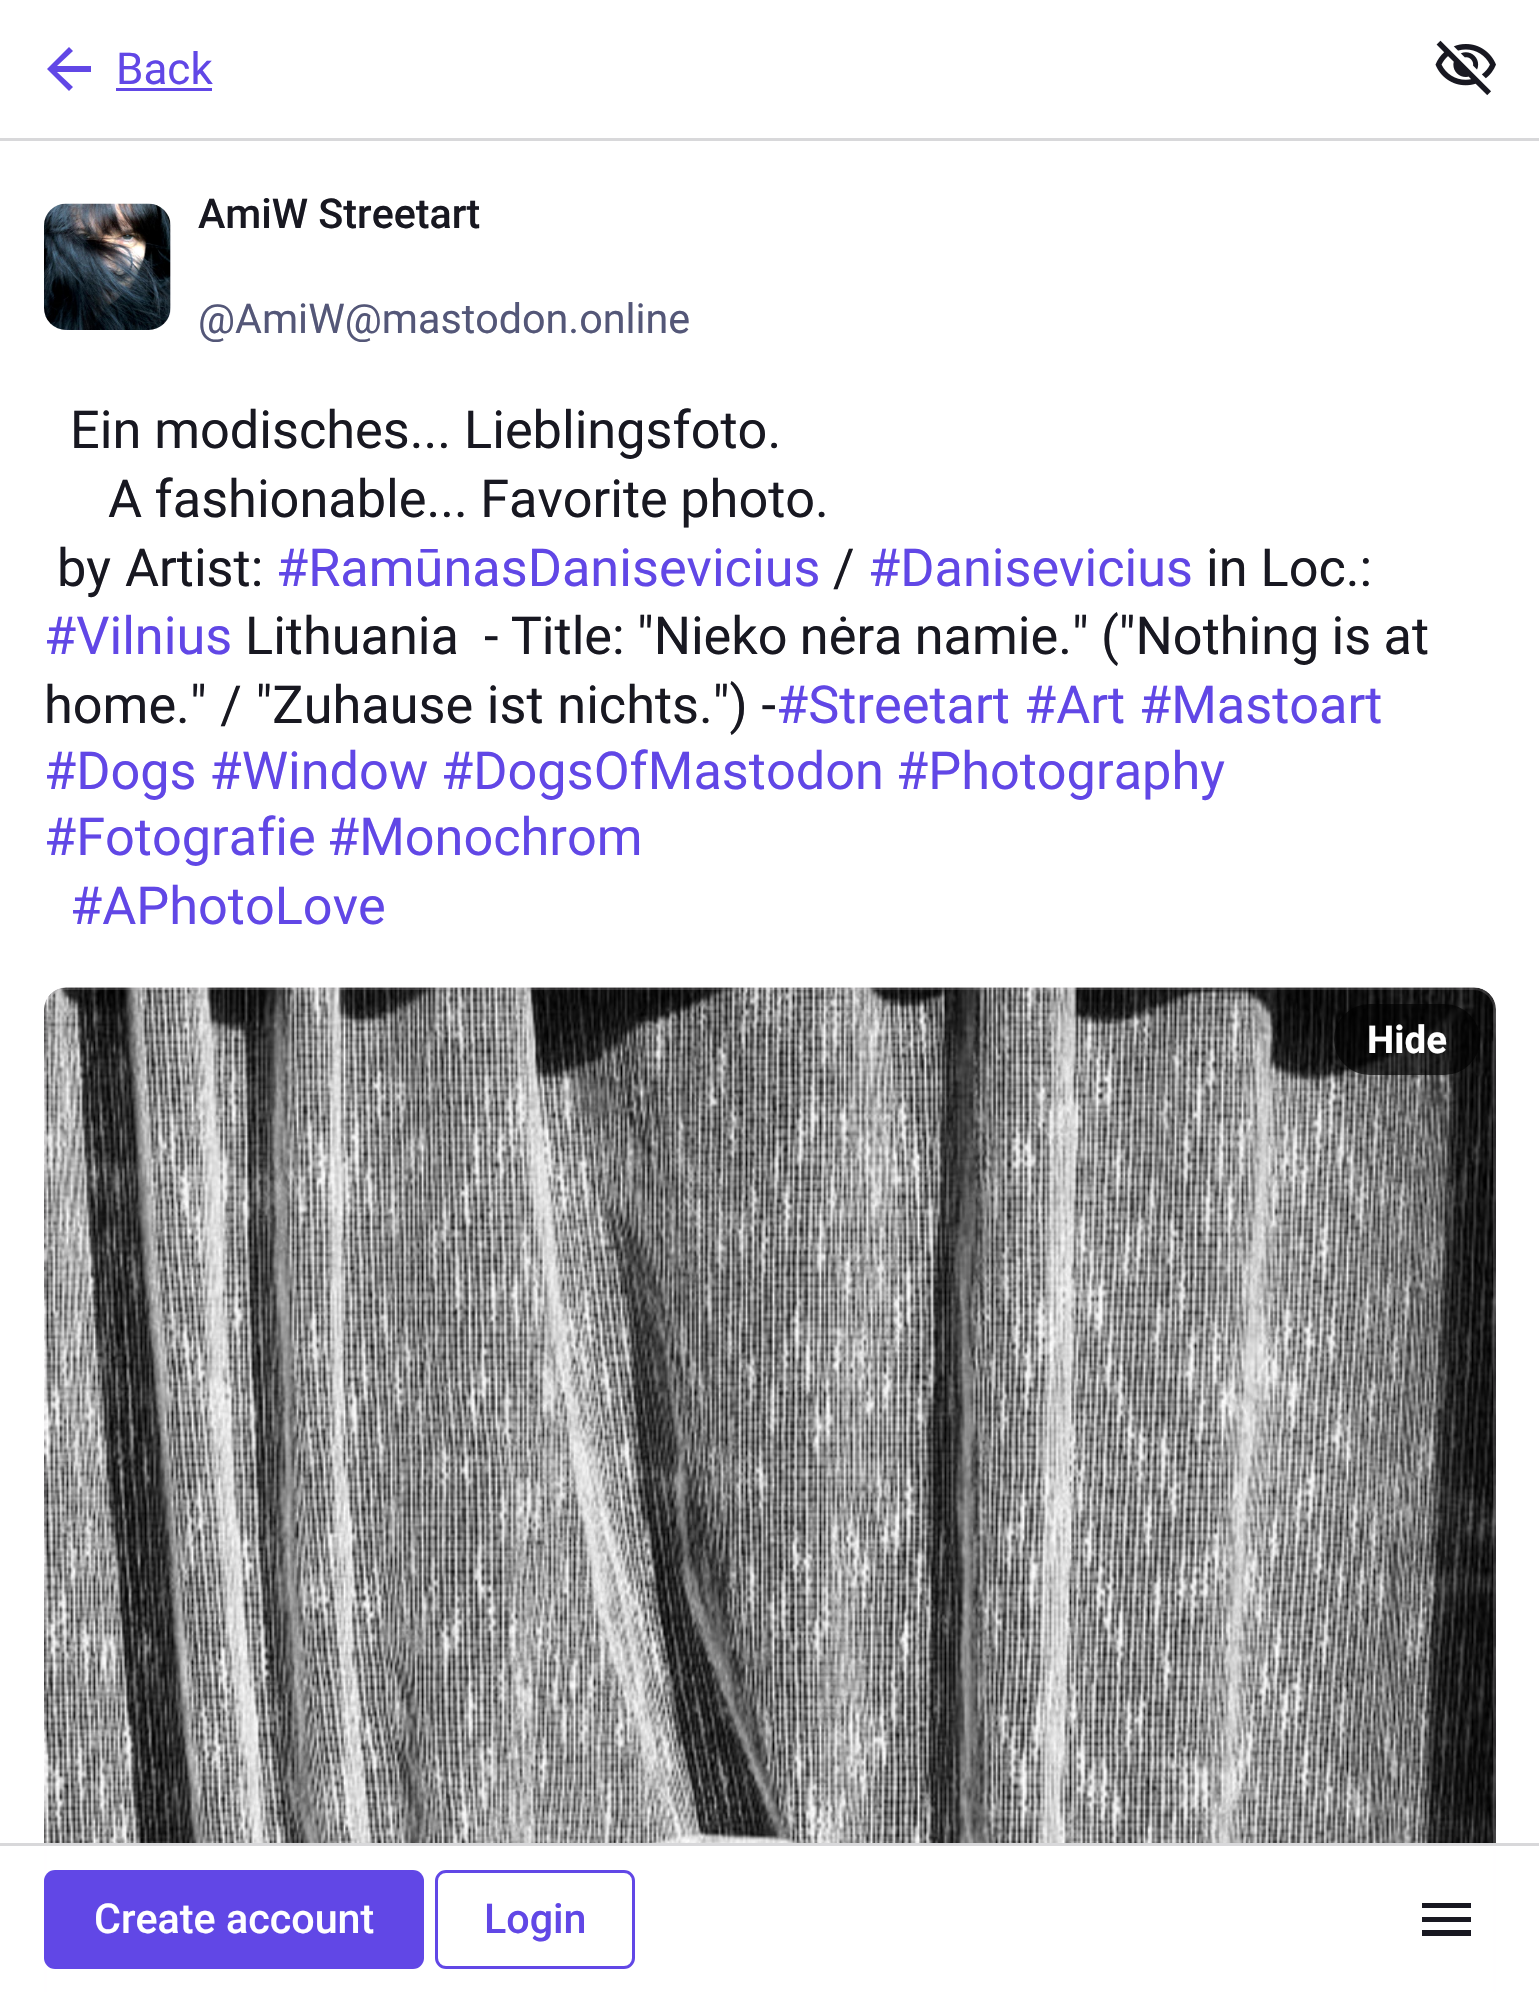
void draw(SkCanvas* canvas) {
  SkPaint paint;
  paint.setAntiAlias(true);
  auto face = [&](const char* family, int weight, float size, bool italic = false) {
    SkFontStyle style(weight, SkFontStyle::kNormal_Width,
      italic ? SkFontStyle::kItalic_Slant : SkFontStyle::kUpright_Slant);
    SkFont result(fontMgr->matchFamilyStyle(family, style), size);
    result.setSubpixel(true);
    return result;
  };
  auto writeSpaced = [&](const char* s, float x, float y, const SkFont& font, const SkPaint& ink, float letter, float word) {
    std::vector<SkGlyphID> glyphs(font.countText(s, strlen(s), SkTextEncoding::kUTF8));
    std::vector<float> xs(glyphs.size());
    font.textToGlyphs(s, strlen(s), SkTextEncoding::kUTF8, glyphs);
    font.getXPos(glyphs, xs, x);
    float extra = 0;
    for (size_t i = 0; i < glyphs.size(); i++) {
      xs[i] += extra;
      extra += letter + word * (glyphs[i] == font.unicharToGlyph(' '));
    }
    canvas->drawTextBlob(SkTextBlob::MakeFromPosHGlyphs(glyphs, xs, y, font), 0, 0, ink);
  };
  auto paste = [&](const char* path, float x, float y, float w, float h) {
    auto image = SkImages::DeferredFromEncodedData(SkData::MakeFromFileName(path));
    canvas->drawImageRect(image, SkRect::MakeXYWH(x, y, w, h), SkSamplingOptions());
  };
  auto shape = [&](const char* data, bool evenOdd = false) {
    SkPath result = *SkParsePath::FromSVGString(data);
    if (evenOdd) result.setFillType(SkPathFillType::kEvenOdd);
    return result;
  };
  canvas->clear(0xffffffff);
  paint.setColor(0xffd8d8da);
  canvas->drawRect(SkRect::MakeXYWH(0, 138, 1539, 3), paint);
  paint.setColor(0xff6147e6);
  canvas->drawPath(shape("M57 72L73 87L69 91L47 69L69 47L73 51L57 66H91V72Z"), paint);
  canvas->drawRect(SkRect::MakeXYWH(116, 88, 96, 3), paint);
  paste("img/1.png", 1435, 40, 61, 56);
  paint.setColor(0xffecedf1);
  canvas->drawRoundRect(SkRect::MakeXYWH(44, 204, 127, 126), 22, 22, paint);
  paste("img/2.png", 44, 203, 127, 127);
  paste("img/3.png", 44, 987, 1452, 856);
  paint.setStroke(true);
  paint.setStrokeWidth(3);
  paint.setColor(0x26fcf8ff);
  canvas->drawRoundRect(SkRect::MakeXYWH(45.5f, 988.5f, 1449, 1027), 20.5f, 20.5f, paint);
  paint.setStroke(false);
  paint.setColor(0xa6000000);
  canvas->drawRoundRect(SkRect::MakeXYWH(1334, 1004, 146, 71), 35.5f, 35.5f, paint);
  paint.setColor(0xffd8d8da);
  canvas->drawRect(SkRect::MakeXYWH(0, 1843, 1539, 3), paint);
  paint.setColor(0xff6147e6);
  canvas->drawRoundRect(SkRect::MakeXYWH(44, 1870, 380, 99), 11, 11, paint);
  paint.setStroke(true);
  canvas->drawRoundRect(SkRect::MakeXYWH(436.5f, 1871.5f, 197, 96), 9.5f, 9.5f, paint);
  paint.setStroke(false);
  paint.setColor(0xff181821);
  canvas->drawPath(shape("M1422 1936V1930H1471V1936ZM1422 1922V1917H1471V1922ZM1422 1908V1903H1471V1908Z"), paint);
  auto f0 = face("Roboto", 400, 44);
  paint.setColor(0xff6147e6);
  canvas->drawString("Back", 116, 84, f0, paint);
  auto f1 = face("Roboto", 500, 41.25f);
  paint.setColor(0xff181821);
  canvas->drawString("AmiW Streetart", 198, 228, f1, paint);
  auto f2 = face("Roboto", 400, 41.25f);
  paint.setColor(0xff545778);
  canvas->drawString("@AmiW@mastodon.online", 198, 333, f2, paint);
  auto f3 = face("Roboto", 400, 52.25f);
  paint.setColor(0xff181821);
  canvas->drawString("Ein modisches... Lieblingsfoto.", 70, 448, f3, paint);
  writeSpaced("A fashionable... Favorite photo.", 108, 517, f3, paint, 0, -0.5f);
  writeSpaced("by Artist:", 57, 586, f3, paint, 0, 1);
  paint.setColor(0xff6147e6);
  canvas->drawString("#RamūnasDanisevicius", 276, 586, f3, paint);
  paint.setColor(0xff181821);
  canvas->drawString("/", 833, 586, f3, paint);
  paint.setColor(0xff6147e6);
  canvas->drawString("#Danisevicius", 868, 586, f3, paint);
  paint.setColor(0xff181821);
  canvas->drawString("in Loc.:", 1206, 586, f3, paint);
  paint.setColor(0xff6147e6);
  canvas->drawString("#Vilnius", 44, 654, f3, paint);
  paint.setColor(0xff181821);
  canvas->drawString("Lithuania", 245, 654, f3, paint);
  writeSpaced("- Title: \"Nieko nėra namie.\" (\"Nothing is at", 484, 654, f3, paint, 0, -0.75f);
  writeSpaced("home.\" / \"Zuhause ist nichts.\") -", 44, 723, f3, paint, 0, 0.75f);
  paint.setColor(0xff6147e6);
  {
    const struct { const char* s; float x, y; } items[] = {
      {"#Streetart", 776, 723},
      {"#Art", 1024, 723},
      {"#Mastoart", 1139, 723},
      {"#Dogs #Window #DogsOfMastodon", 44, 789},
      {"#Photography", 896, 789},
      {"#Fotografie", 44, 855},
      {"#Monochrom", 327, 855},
      {"#APhotoLove", 70, 924},
    };
    for (auto [s, x, y] : items) {
      canvas->drawString(s, x, y, f3, paint);
    }
  }
  auto f4 = face("Roboto", 700, 38.5f);
  paint.setColor(0xffffffff);
  canvas->drawString("Hide", 1367, 1053, f4, paint);
  canvas->drawString("Create account", 94, 1933, f1, paint);
  paint.setColor(0xff6147e6);
  canvas->drawString("Login", 484, 1933, f1, paint);
}
